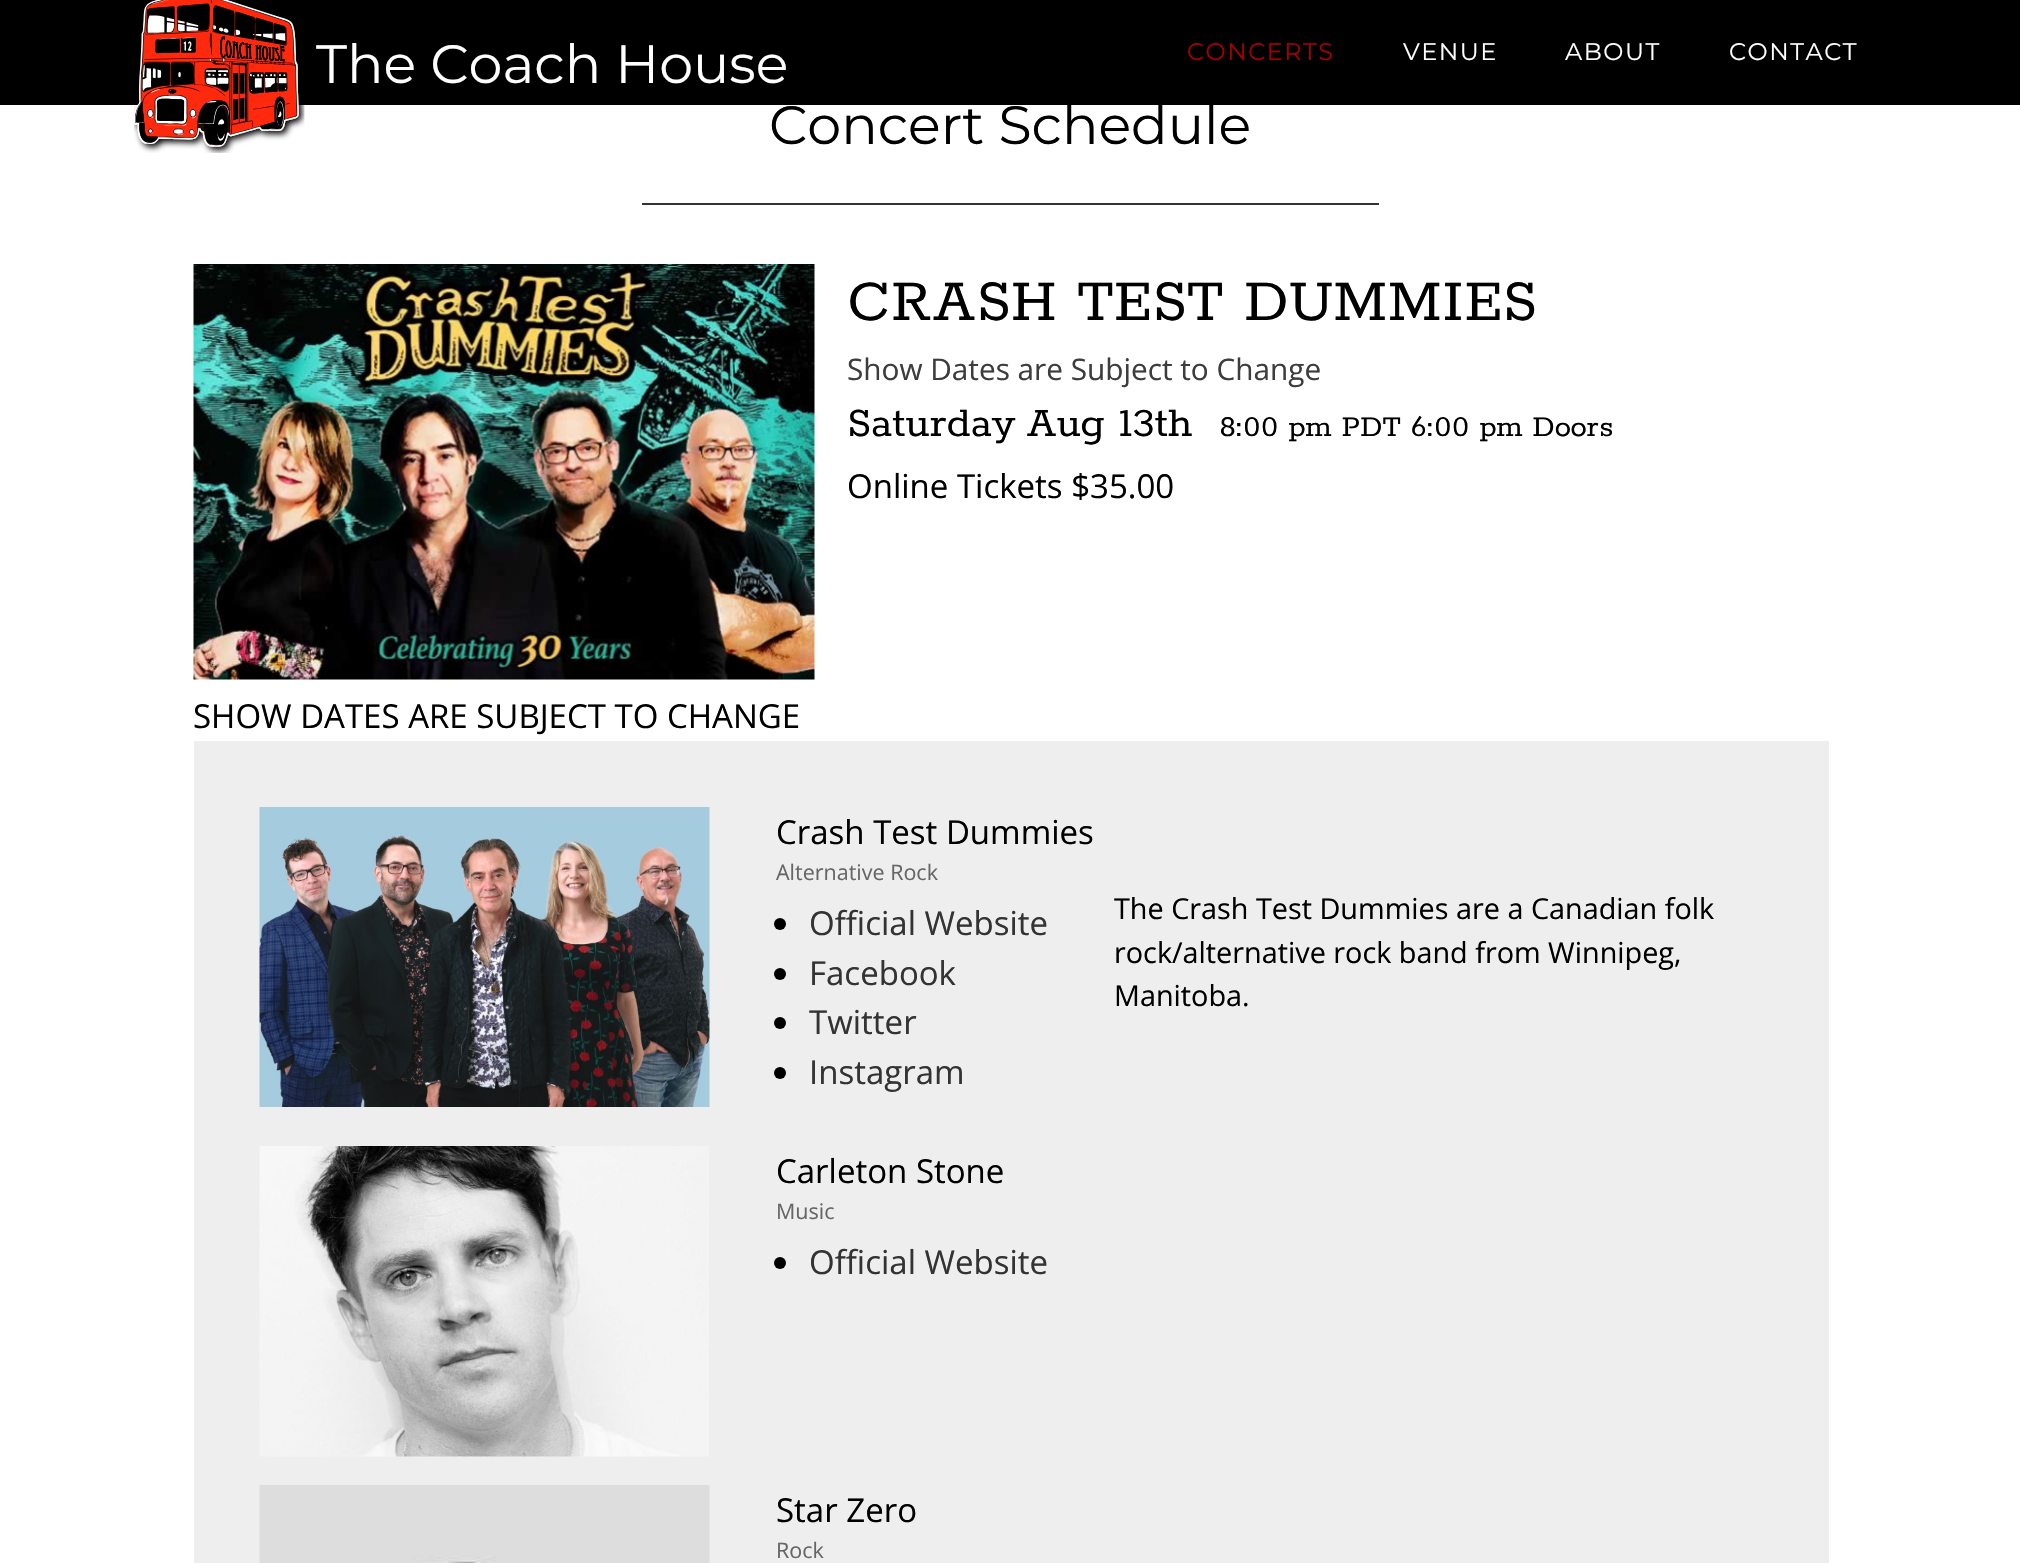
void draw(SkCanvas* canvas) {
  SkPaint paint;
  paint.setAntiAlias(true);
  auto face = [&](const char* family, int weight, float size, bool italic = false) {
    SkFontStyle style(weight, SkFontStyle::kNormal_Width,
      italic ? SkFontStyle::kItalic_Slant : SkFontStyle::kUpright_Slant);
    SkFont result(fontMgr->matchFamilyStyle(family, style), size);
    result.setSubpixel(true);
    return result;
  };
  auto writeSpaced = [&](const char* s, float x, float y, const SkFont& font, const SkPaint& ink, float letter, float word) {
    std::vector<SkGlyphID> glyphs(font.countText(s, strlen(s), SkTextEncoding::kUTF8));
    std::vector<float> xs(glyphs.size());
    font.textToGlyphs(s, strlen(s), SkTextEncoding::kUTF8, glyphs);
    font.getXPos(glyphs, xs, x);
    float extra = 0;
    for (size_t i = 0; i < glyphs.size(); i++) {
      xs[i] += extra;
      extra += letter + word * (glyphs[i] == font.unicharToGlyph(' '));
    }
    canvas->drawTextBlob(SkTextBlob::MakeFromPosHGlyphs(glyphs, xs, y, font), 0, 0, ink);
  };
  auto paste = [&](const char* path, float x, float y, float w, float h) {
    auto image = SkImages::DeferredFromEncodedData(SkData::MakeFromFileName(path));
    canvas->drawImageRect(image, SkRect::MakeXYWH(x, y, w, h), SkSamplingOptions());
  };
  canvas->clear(0xffffffff);
  paint.setColor(0xff000000);
  canvas->drawRect(SkRect::MakeXYWH(0, 0, 2020, 105), paint);
  paste("img/1.png", 134, 0, 171, 153);
  paint.setColor(0xff333333);
  canvas->drawRect(SkRect::MakeXYWH(642, 203, 737, 2), paint);
  paste("img/2.png", 193, 264, 622, 416);
  paint.setColor(0xffeeeeee);
  canvas->drawRect(SkRect::MakeXYWH(194, 741, 1635, 822), paint);
  paste("img/3.png", 259, 807, 451, 300);
  paint.setColor(0xff000000);
  canvas->drawCircle(780, 924, 6, paint);
  canvas->drawCircle(780, 974, 6, paint);
  canvas->drawCircle(780, 1023, 6, paint);
  canvas->drawCircle(780, 1073, 6, paint);
  paste("img/4.png", 259, 1146, 450, 311);
  canvas->drawCircle(780, 1263, 6, paint);
  paste("img/5.png", 259, 1485, 451, 78);
  auto f0 = face("Montserrat", 400, 54);
  paint.setColor(0xffffffff);
  canvas->drawString("The Coach House", 316, 83, f0, paint);
  auto f1 = face("Montserrat", 400, 24);
  paint.setColor(0xffa40002);
  writeSpaced("CONCERTS", 1187, 60, f1, paint, 1.5f, 0);
  paint.setColor(0xffffffff);
  {
    const struct { const char* s; float x, y; } items[] = {
      {"VENUE", 1403, 60},
      {"ABOUT", 1565, 60},
      {"CONTACT", 1729, 60},
    };
    for (auto [s, x, y] : items) {
      writeSpaced(s, x, y, f1, paint, 1.5f, 0);
    }
  }
  paint.setColor(0xff000000);
  canvas->drawString("Concert Schedule", 769, 144, f0, paint);
  auto f2 = face("Rokkitt", 400, 66);
  canvas->drawString("CRASH TEST DUMMIES", 847, 320, f2, paint);
  auto f3 = face("Open Sans", 400, 29.75f);
  paint.setColor(0xff3d3d3d);
  canvas->drawString("Show Dates are Subject to Change", 847, 380, f3, paint);
  auto f4 = face("Rokkitt", 400, 46);
  paint.setColor(0xff000000);
  canvas->drawString("Saturday", 847, 436, f4, paint);
  canvas->drawString("Aug 13th", 1026, 436, f4, paint);
  auto f5 = face("Rokkitt", 400, 33);
  canvas->drawString("8:00 pm PDT 6:00 pm Doors", 1220, 436, f5, paint);
  auto f6 = face("Open Sans", 400, 33);
  {
    const struct { const char* s; float x, y; } items[] = {
      {"Online Tickets $35.00", 847, 498},
      {"SHOW DATES ARE SUBJECT TO CHANGE", 193, 728},
      {"Crash Test Dummies", 776, 844},
    };
    for (auto [s, x, y] : items) {
      canvas->drawString(s, x, y, f6, paint);
    }
  }
  auto f7 = face("Open Sans", 400, 21.5f);
  paint.setColor(0xff666666);
  canvas->drawString("Alternative Rock", 776, 880, f7, paint);
  paint.setColor(0xff333333);
  {
    const struct { const char* s; float x, y; } items[] = {
      {"Official Website", 809, 935},
      {"Facebook", 809, 985},
      {"Twitter", 809, 1034},
      {"Instagram", 809, 1084},
    };
    for (auto [s, x, y] : items) {
      canvas->drawString(s, x, y, f6, paint);
    }
  }
  auto f8 = face("Open Sans", 400, 28.8f);
  paint.setColor(0xff000000);
  {
    const struct { const char* s; float x, y; } items[] = {
      {"The Crash Test Dummies are a Canadian folk", 1114, 919},
      {"rock/alternative rock band from Winnipeg,", 1114, 963},
      {"Manitoba.", 1114, 1006},
    };
    for (auto [s, x, y] : items) {
      canvas->drawString(s, x, y, f8, paint);
    }
  }
  canvas->drawString("Carleton Stone", 776, 1183, f6, paint);
  paint.setColor(0xff666666);
  canvas->drawString("Music", 776, 1219, f7, paint);
  paint.setColor(0xff333333);
  canvas->drawString("Official Website", 809, 1274, f6, paint);
  paint.setColor(0xff000000);
  canvas->drawString("Star Zero", 776, 1522, f6, paint);
  paint.setColor(0xff666666);
  canvas->drawString("Rock", 776, 1558, f7, paint);
}
